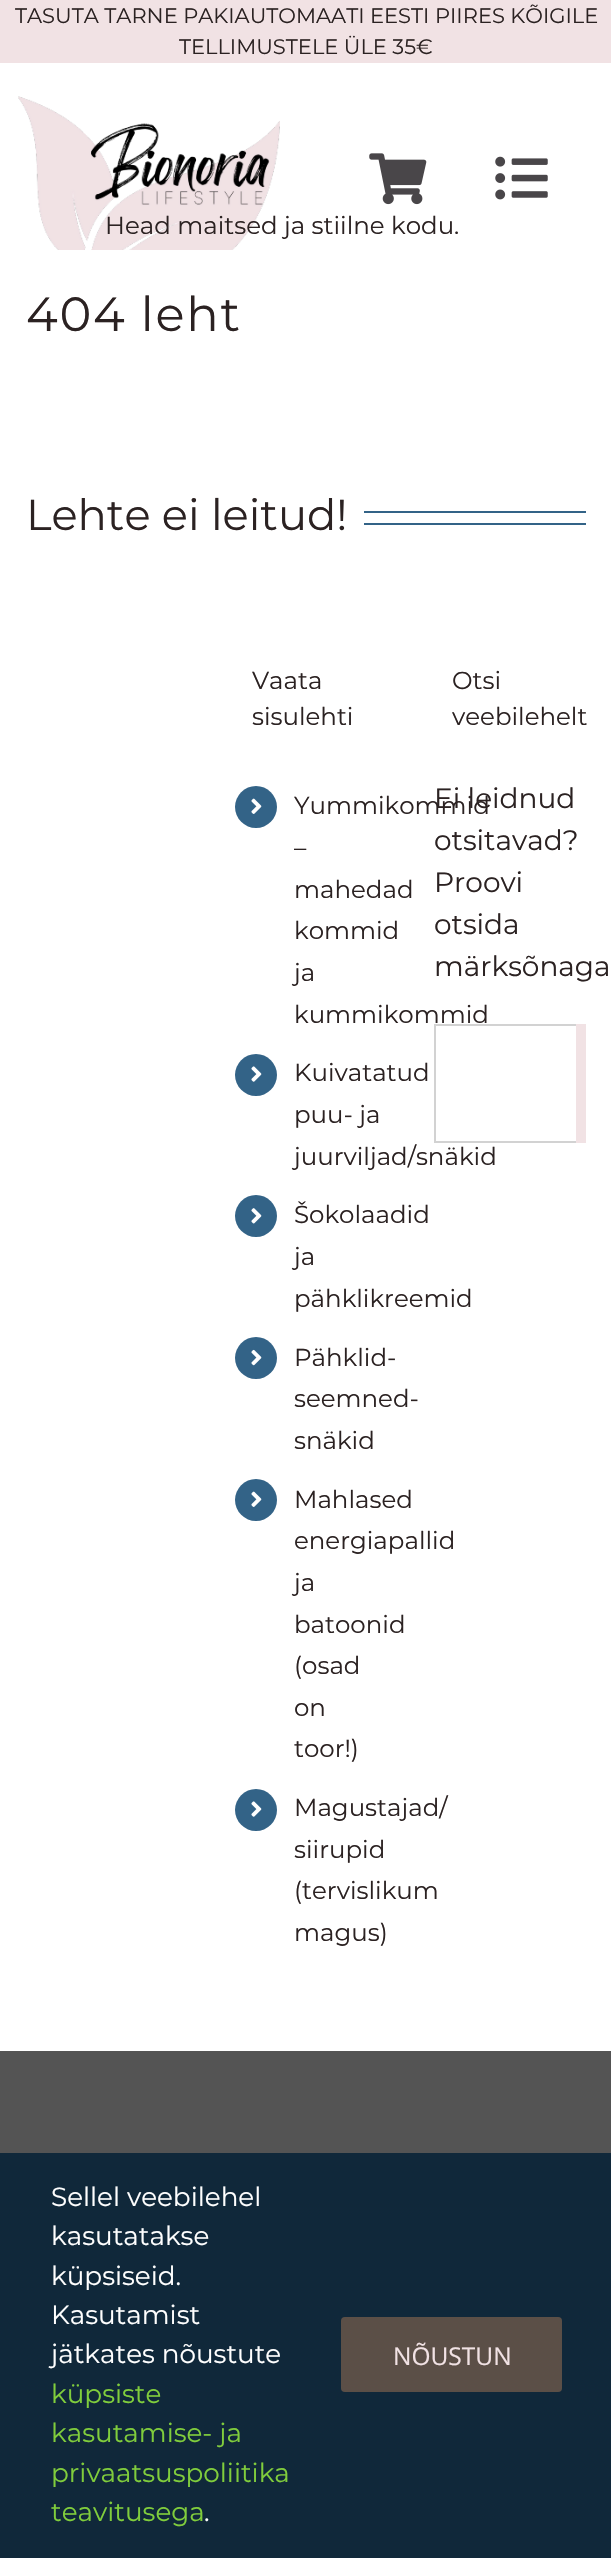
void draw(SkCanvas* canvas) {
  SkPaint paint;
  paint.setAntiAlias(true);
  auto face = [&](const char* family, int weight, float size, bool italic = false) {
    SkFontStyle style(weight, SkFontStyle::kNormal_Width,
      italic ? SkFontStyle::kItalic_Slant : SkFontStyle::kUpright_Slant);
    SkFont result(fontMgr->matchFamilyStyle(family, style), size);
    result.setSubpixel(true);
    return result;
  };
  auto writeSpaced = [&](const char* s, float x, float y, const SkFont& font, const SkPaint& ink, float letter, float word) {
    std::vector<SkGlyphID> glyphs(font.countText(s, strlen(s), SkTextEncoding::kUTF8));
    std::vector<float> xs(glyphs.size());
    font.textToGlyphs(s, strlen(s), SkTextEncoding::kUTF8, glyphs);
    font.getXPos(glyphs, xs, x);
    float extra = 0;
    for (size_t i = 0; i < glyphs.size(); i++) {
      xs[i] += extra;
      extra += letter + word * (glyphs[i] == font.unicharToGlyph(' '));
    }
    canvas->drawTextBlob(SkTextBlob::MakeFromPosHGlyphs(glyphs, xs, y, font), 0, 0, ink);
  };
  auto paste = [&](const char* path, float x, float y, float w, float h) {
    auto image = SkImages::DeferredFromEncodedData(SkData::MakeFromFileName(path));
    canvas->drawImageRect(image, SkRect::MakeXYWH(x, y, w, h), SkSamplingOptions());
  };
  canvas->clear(0xffffffff);
  paint.setColor(0xfff1e2e4);
  canvas->drawRect(SkRect::MakeXYWH(0, 0, 611, 63), paint);
  paste("img/1.png", 369, 153, 58, 52);
  paste("img/2.png", 495, 156, 53, 44);
  paste("img/3.png", 18, 96, 262, 154);
  paint.setColor(0xff336387);
  canvas->drawRect(SkRect::MakeXYWH(364, 511, 222, 2), paint);
  canvas->drawRect(SkRect::MakeXYWH(364, 523, 222, 2), paint);
  canvas->drawCircle(256, 807, 21, paint);
  paste("img/4.png", 251, 798, 11, 16);
  canvas->drawCircle(256, 1075, 21, paint);
  paste("img/5.png", 251, 1066, 11, 16);
  canvas->drawCircle(256, 1216, 21, paint);
  paste("img/6.png", 251, 1208, 11, 16);
  canvas->drawCircle(256, 1358, 21, paint);
  paste("img/7.png", 251, 1349, 11, 17);
  canvas->drawCircle(256, 1500, 21, paint);
  paste("img/4.png", 251, 1491, 11, 16);
  canvas->drawCircle(256, 1810, 21, paint);
  paste("img/5.png", 251, 1801, 11, 16);
  {
    const struct { float x, y, w, h; SkColor color; } items[] = {
      {434, 1024, 142, 2, 0xffd2d2d2},
      {434, 1141, 142, 2, 0xffd2d2d2},
      {434, 1024, 2, 119, 0xffd2d2d2},
      {576, 1024, 10, 119, 0xfff1e2e4},
      {0, 2051, 611, 102, 0xff545454},
      {0, 2153, 611, 405, 0xff10283a},
    };
    for (auto [x, y, w, h, color] : items) {
      paint.setColor(color);
      canvas->drawRect(SkRect::MakeXYWH(x, y, w, h), paint);
    }
  }
  paint.setColor(0xff5b4f47);
  canvas->drawRoundRect(SkRect::MakeXYWH(341, 2317, 221, 75), 4, 4, paint);
  auto f0 = face("Montserrat", 400, 21);
  paint.setColor(0xff2b2222);
  canvas->drawString("TASUTA TARNE PAKIAUTOMAATI EESTI PIIRES KÕIGILE", 15, 23, f0, paint);
  canvas->drawString("TELLIMUSTELE ÜLE 35€", 179, 54, f0, paint);
  auto f1 = face("Montserrat", 400, 24.5f);
  canvas->drawString("Head maitsed ja stiilne kodu.", 105, 234, f1, paint);
  auto f2 = face("Montserrat", 400, 48);
  writeSpaced("404 leht", 26, 331, f2, paint, 1.75f, 0);
  auto f3 = face("Montserrat", 400, 43.25f);
  canvas->drawString("Lehte ei leitud!", 26, 530, f3, paint);
  {
    const struct { const char* s; float x, y; } items[] = {
      {"Vaata", 252, 689},
      {"sisulehti", 252, 725},
      {"Yummikommid", 294, 814},
      {"–", 294, 856},
      {"mahedad", 294, 898},
      {"kommid", 294, 939},
      {"ja", 294, 981},
      {"kummikommid", 294, 1023},
      {"Kuivatatud", 294, 1081},
      {"puu- ja", 294, 1123},
      {"juurviljad/snäkid", 294, 1165},
      {"Šokolaadid", 294, 1223},
      {"ja", 294, 1265},
      {"pähklikreemid", 294, 1307},
      {"Pähklid-", 294, 1366},
      {"seemned-", 294, 1407},
      {"snäkid", 294, 1449},
      {"Mahlased", 294, 1508},
      {"energiapallid", 294, 1549},
      {"ja", 294, 1591},
      {"batoonid", 294, 1633},
      {"(osad", 294, 1674},
      {"on", 294, 1716},
      {"toor!)", 294, 1757},
      {"Magustajad/", 294, 1816},
      {"siirupid", 294, 1858},
      {"(tervislikum", 294, 1899},
      {"magus)", 294, 1941},
      {"Otsi", 452, 689},
      {"veebilehelt", 452, 725},
    };
    for (auto [s, x, y] : items) {
      canvas->drawString(s, x, y, f1, paint);
    }
  }
  auto f4 = face("Montserrat", 400, 28);
  {
    const struct { const char* s; float x, y; } items[] = {
      {"Ei leidnud", 434, 808},
      {"otsitavad?", 434, 850},
      {"Proovi", 434, 892},
      {"otsida", 434, 934},
      {"märksõnaga", 434, 976},
    };
    for (auto [s, x, y] : items) {
      canvas->drawString(s, x, y, f4, paint);
    }
  }
  auto f5 = face("Montserrat", 400, 26.25f);
  paint.setColor(0xffffffff);
  {
    const struct { const char* s; float x, y; } items[] = {
      {"Sellel veebilehel", 51, 2206},
      {"kasutatakse", 51, 2245},
      {"küpsiseid.", 51, 2285},
      {"Kasutamist", 51, 2324},
      {"jätkates nõustute", 51, 2363},
    };
    for (auto [s, x, y] : items) {
      canvas->drawString(s, x, y, f5, paint);
    }
  }
  paint.setColor(0xff80cd3c);
  {
    const struct { const char* s; float x, y; } items[] = {
      {"küpsiste", 51, 2403},
      {"kasutamise- ja", 51, 2442},
      {"privaatsuspoliitika", 51, 2482},
      {"teavitusega", 51, 2521},
    };
    for (auto [s, x, y] : items) {
      canvas->drawString(s, x, y, f5, paint);
    }
  }
  paint.setColor(0xffffffff);
  canvas->drawString(".", 204, 2521, f5, paint);
  auto f6 = face("Open Sans", 400, 24.5f);
  paint.setColor(0xfff1e2e4);
  canvas->drawString("NÕUSTUN", 393, 2365, f6, paint);
}
